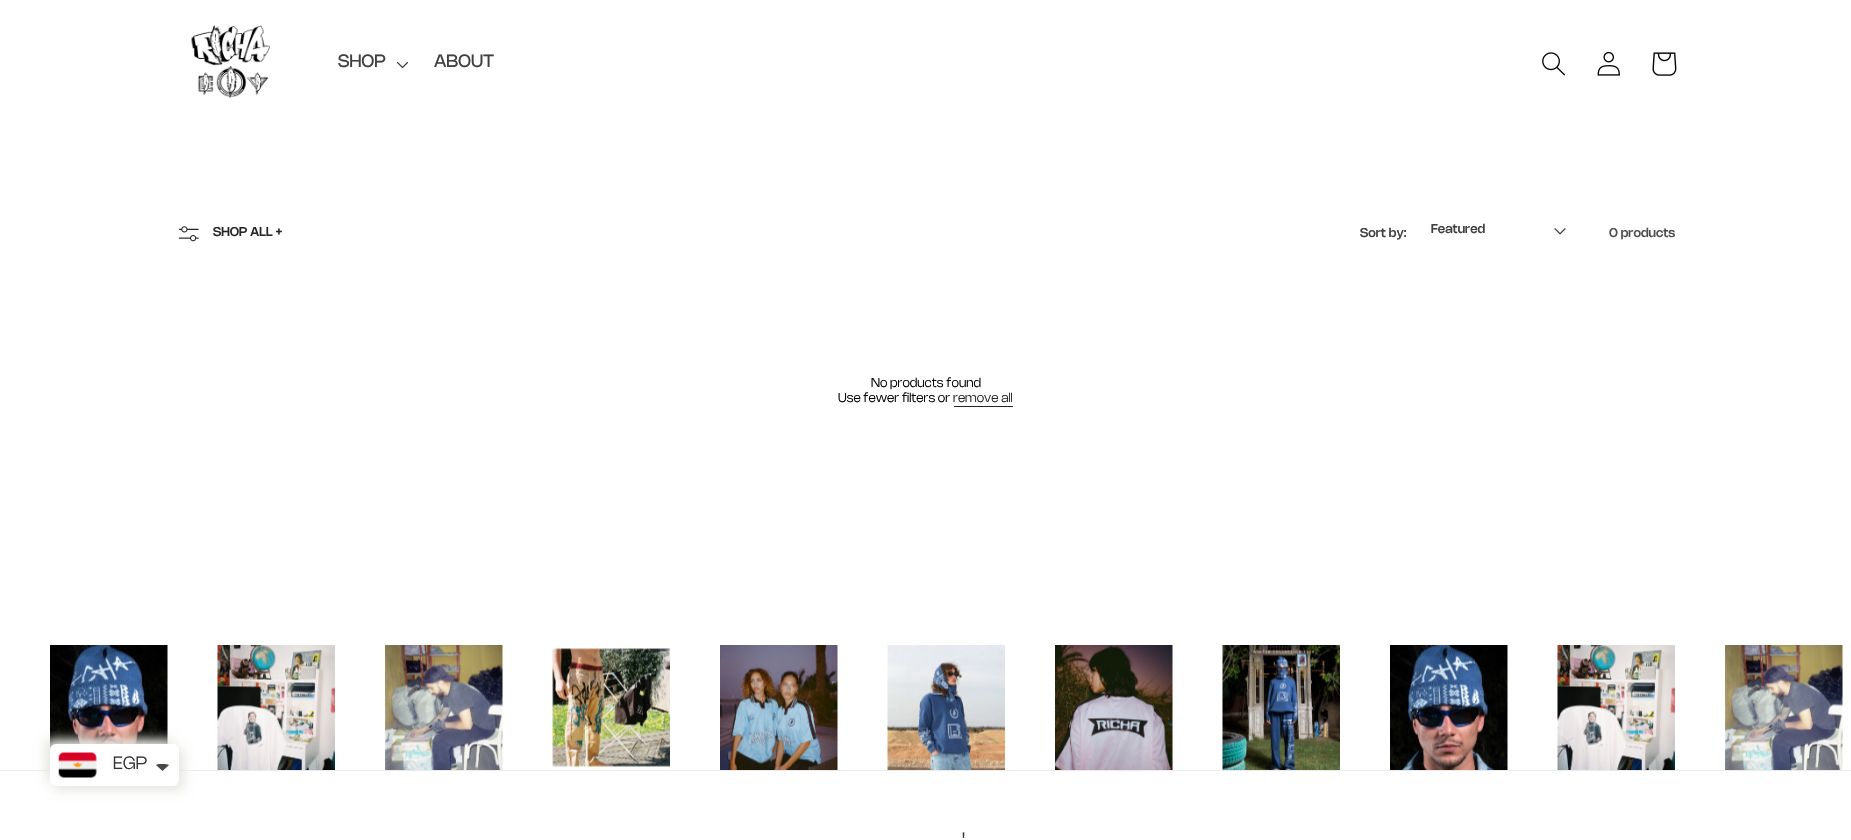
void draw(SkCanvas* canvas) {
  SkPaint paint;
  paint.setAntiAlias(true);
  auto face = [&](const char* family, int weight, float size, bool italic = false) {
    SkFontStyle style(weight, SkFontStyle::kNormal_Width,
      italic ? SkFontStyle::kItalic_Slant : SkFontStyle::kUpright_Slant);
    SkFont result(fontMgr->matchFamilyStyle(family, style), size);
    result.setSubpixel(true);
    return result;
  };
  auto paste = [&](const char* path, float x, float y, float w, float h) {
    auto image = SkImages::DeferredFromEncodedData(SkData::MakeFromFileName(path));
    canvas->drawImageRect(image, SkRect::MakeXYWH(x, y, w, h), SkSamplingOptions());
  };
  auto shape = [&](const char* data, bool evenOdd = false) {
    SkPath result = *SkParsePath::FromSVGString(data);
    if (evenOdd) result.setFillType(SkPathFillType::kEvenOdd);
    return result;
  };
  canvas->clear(0xffffffff);
  paste("img/1.png", 191, 25, 79, 73);
  paste("img/2.png", 396, 61, 13, 8);
  paste("img/3.png", 1542, 52, 23, 24);
  paste("img/4.png", 1597, 51, 23, 25);
  paste("img/5.png", 1652, 52, 25, 24);
  paste("img/6.png", 178, 226, 21, 16);
  paste("img/7.png", 1554, 228, 12, 7);
  paint.setColor(0xff262626);
  canvas->drawRect(SkRect::MakeXYWH(954, 406, 59, 1), paint);
  paste("img/8.png", 50, 645, 118, 105);
  paste("img/9.png", 217, 645, 118, 125);
  paste("img/10.png", 385, 645, 118, 125);
  paste("img/11.png", 552, 648, 118, 119);
  paste("img/12.png", 720, 645, 118, 125);
  paste("img/13.png", 887, 645, 118, 125);
  paste("img/14.png", 1055, 645, 118, 125);
  paste("img/15.png", 1222, 645, 118, 125);
  paste("img/16.png", 1390, 645, 118, 125);
  paste("img/9.png", 1557, 645, 118, 125);
  paste("img/10.png", 1725, 645, 118, 125);
  paint.setColor(0xffebebeb);
  canvas->drawRect(SkRect::MakeXYWH(0, 770, 1851, 1), paint);
  paint.setColor(0xffe8e8e2);
  paint.setMaskFilter(SkMaskFilter::MakeBlur(kNormal_SkBlurStyle, 5.5f));
  canvas->drawRoundRect(SkRect::MakeXYWH(45, 739, 129, 42), 6, 6, paint);
  paint.setMaskFilter(nullptr);
  paint.setMaskFilter(SkMaskFilter::MakeBlur(kNormal_SkBlurStyle, 5.5f));
  canvas->drawRoundRect(SkRect::MakeXYWH(55, 749, 129, 42), 6, 6, paint);
  paint.setMaskFilter(nullptr);
  paint.setColor(0xffffffff);
  canvas->drawRoundRect(SkRect::MakeXYWH(50, 744, 129, 42), 6, 6, paint);
  paste("img/17.png", 58, 752, 39, 26);
  paint.setColor(0xff474942);
  canvas->drawPath(shape("M159 764C161.5 764 167 763.5 169 765L162.5 771L156 765C157 764.5 158 764 159 764Z"), paint);
  auto f0 = face("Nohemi", 400, 17.5f);
  paint.setColor(0xff404040);
  canvas->drawString("SHOP", 338, 67, f0, paint);
  canvas->drawString("ABOUT", 434, 67, f0, paint);
  auto f1 = face("Nohemi", 500, 12.5f);
  paint.setColor(0xff262626);
  canvas->drawString("SHOP ALL +", 213, 236, f1, paint);
  paint.setColor(0xff404040);
  canvas->drawString("Sort by:", 1360, 237, f1, paint);
  canvas->drawString("Featured", 1431, 233, f1, paint);
  paint.setColor(0xff4d4d4d);
  canvas->drawString("0 products", 1609, 237, f1, paint);
  auto f2 = face("Nohemi", 300, 12.5f);
  paint.setColor(0xff000000);
  canvas->drawString("No products found", 871, 387, f2, paint);
  canvas->drawString("Use fewer filters or", 838, 402, f2, paint);
  paint.setColor(0xff262626);
  canvas->drawString("remove all", 953, 402, f2, paint);
  auto f3 = face("Nohemi", 300, 17.5f);
  paint.setColor(0xff333333);
  canvas->drawString("EGP", 113, 769, f3, paint);
  auto f4 = face("Nohemi", 400, 16);
  paint.setColor(0xff404040);
  canvas->drawString("'", 962, 844, f4, paint);
}
